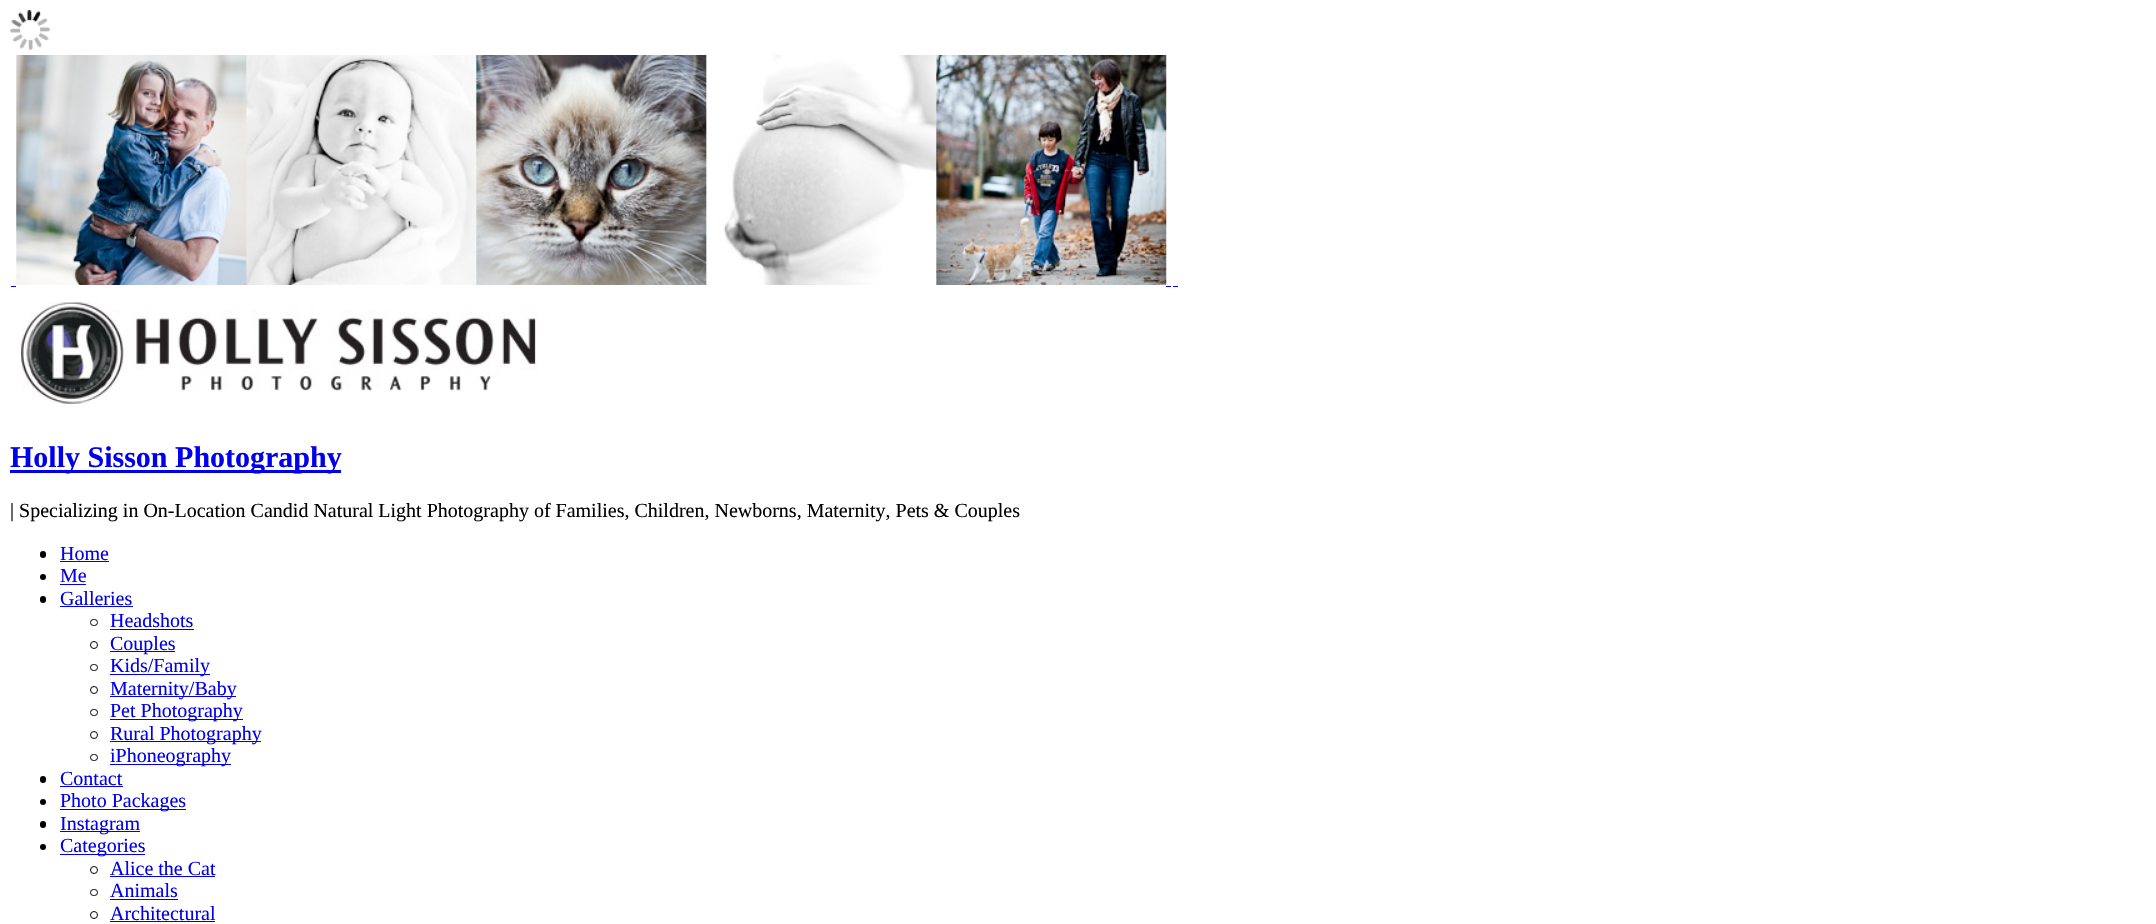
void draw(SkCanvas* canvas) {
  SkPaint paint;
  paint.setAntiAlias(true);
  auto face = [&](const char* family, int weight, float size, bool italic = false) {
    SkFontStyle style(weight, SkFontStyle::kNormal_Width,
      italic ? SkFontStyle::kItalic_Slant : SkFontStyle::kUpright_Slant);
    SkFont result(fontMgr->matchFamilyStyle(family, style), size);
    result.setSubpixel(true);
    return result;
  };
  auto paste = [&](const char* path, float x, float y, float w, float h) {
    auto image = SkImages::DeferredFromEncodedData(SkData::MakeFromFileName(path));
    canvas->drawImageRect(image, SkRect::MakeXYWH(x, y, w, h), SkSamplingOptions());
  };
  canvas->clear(0xffffffff);
  paste("img/1.png", 10, 10, 40, 40);
  paste("img/2.png", 16, 55, 1151, 230);
  {
    const struct { float x, y, w, h; SkColor color; } items[] = {
      {11, 286, 5, 1, 0xff0000ee},
      {1166, 286, 5, 1, 0xff0000ee},
      {1173, 286, 5, 1, 0xff0000ee},
    };
    for (auto [x, y, w, h, color] : items) {
      paint.setColor(color);
      canvas->drawRect(SkRect::MakeXYWH(x, y, w, h), paint);
    }
  }
  paste("img/3.png", 21, 301, 518, 103);
  canvas->drawRect(SkRect::MakeXYWH(10, 470, 331, 3), paint);
  paint.setColor(0xff000000);
  canvas->drawRoundRect(SkRect::MakeXYWH(40, 551, 6, 7), 3, 3, paint);
  paint.setColor(0xff0000ee);
  canvas->drawRect(SkRect::MakeXYWH(60, 561, 49, 1), paint);
  paint.setColor(0xff000000);
  canvas->drawCircle(43, 577, 3, paint);
  paint.setColor(0xff0000ee);
  canvas->drawRect(SkRect::MakeXYWH(60, 584, 26, 1), paint);
  paint.setColor(0xff000000);
  canvas->drawRoundRect(SkRect::MakeXYWH(40, 596, 6, 7), 3, 3, paint);
  paint.setColor(0xff0000ee);
  canvas->drawRect(SkRect::MakeXYWH(60, 606, 73, 1), paint);
  paint.setStroke(true);
  paint.setStrokeWidth(1);
  paint.setColor(0xff000000);
  canvas->drawRoundRect(SkRect::MakeXYWH(90.5f, 619.5f, 7, 6), 3, 3, paint);
  paint.setStroke(false);
  paint.setColor(0xff0000ee);
  canvas->drawRect(SkRect::MakeXYWH(110, 629, 84, 1), paint);
  paint.setStroke(true);
  paint.setColor(0xff000000);
  canvas->drawCircle(94, 645, 3.5f, paint);
  paint.setStroke(false);
  paint.setColor(0xff0000ee);
  canvas->drawRect(SkRect::MakeXYWH(110, 651, 65, 1), paint);
  paint.setStroke(true);
  paint.setColor(0xff000000);
  canvas->drawRoundRect(SkRect::MakeXYWH(90.5f, 664.5f, 7, 6), 3, 3, paint);
  paint.setStroke(false);
  paint.setColor(0xff0000ee);
  canvas->drawRect(SkRect::MakeXYWH(110, 674, 100, 1), paint);
  paint.setStroke(true);
  paint.setColor(0xff000000);
  canvas->drawCircle(94, 690, 3.5f, paint);
  paint.setStroke(false);
  paint.setColor(0xff0000ee);
  canvas->drawRect(SkRect::MakeXYWH(110, 696, 126, 1), paint);
  paint.setStroke(true);
  paint.setColor(0xff000000);
  canvas->drawRoundRect(SkRect::MakeXYWH(90.5f, 709.5f, 7, 6), 3, 3, paint);
  paint.setStroke(false);
  paint.setColor(0xff0000ee);
  canvas->drawRect(SkRect::MakeXYWH(110, 719, 133, 1), paint);
  paint.setStroke(true);
  paint.setColor(0xff000000);
  canvas->drawCircle(94, 735, 3.5f, paint);
  paint.setStroke(false);
  paint.setColor(0xff0000ee);
  canvas->drawRect(SkRect::MakeXYWH(110, 741, 151, 1), paint);
  paint.setStroke(true);
  paint.setColor(0xff000000);
  canvas->drawRoundRect(SkRect::MakeXYWH(90.5f, 754.5f, 7, 6), 3, 3, paint);
  paint.setStroke(false);
  paint.setColor(0xff0000ee);
  canvas->drawRect(SkRect::MakeXYWH(110, 764, 121, 1), paint);
  paint.setColor(0xff000000);
  canvas->drawRoundRect(SkRect::MakeXYWH(40, 776, 6, 7), 3, 3, paint);
  paint.setColor(0xff0000ee);
  canvas->drawRect(SkRect::MakeXYWH(60, 786, 63, 1), paint);
  paint.setColor(0xff000000);
  canvas->drawCircle(43, 802, 3, paint);
  paint.setColor(0xff0000ee);
  canvas->drawRect(SkRect::MakeXYWH(60, 809, 126, 1), paint);
  paint.setColor(0xff000000);
  canvas->drawRoundRect(SkRect::MakeXYWH(40, 821, 6, 7), 3, 3, paint);
  paint.setColor(0xff0000ee);
  canvas->drawRect(SkRect::MakeXYWH(60, 831, 80, 1), paint);
  paint.setColor(0xff000000);
  canvas->drawCircle(43, 847, 3, paint);
  paint.setColor(0xff0000ee);
  canvas->drawRect(SkRect::MakeXYWH(60, 854, 85, 1), paint);
  paint.setStroke(true);
  paint.setColor(0xff000000);
  canvas->drawCircle(94, 870, 3.5f, paint);
  paint.setStroke(false);
  paint.setColor(0xff0000ee);
  canvas->drawRect(SkRect::MakeXYWH(110, 876, 105, 1), paint);
  paint.setStroke(true);
  paint.setColor(0xff000000);
  canvas->drawRoundRect(SkRect::MakeXYWH(90.5f, 889.5f, 7, 6), 3, 3, paint);
  paint.setStroke(false);
  paint.setColor(0xff0000ee);
  canvas->drawRect(SkRect::MakeXYWH(110, 899, 68, 1), paint);
  paint.setStroke(true);
  paint.setColor(0xff000000);
  canvas->drawCircle(94, 915, 3.5f, paint);
  paint.setStroke(false);
  paint.setColor(0xff0000ee);
  canvas->drawRect(SkRect::MakeXYWH(110, 921, 105, 1), paint);
  auto f0 = face("Liberation Serif", 700, 30);
  canvas->drawString("Holly Sisson Photography", 10, 467, f0, paint);
  auto f1 = face("Liberation Serif", 400, 20);
  paint.setColor(0xff000000);
  canvas->drawString("| Specializing in On-Location Candid Natural Light Photography of Families, Children, Newborns, Maternity, Pets & Couples", 10, 517, f1, paint);
  paint.setColor(0xff0000ee);
  {
    const struct { const char* s; float x, y; } items[] = {
      {"Home", 60, 560},
      {"Me", 60, 582},
      {"Galleries", 60, 605},
      {"Headshots", 110, 627},
      {"Couples", 110, 650},
      {"Kids/Family", 110, 672},
      {"Maternity/Baby", 110, 695},
      {"Pet Photography", 110, 717},
      {"Rural Photography", 110, 740},
      {"iPhoneography", 110, 762},
      {"Contact", 60, 785},
      {"Photo Packages", 60, 807},
      {"Instagram", 60, 830},
      {"Categories", 60, 852},
      {"Alice the Cat", 110, 875},
      {"Animals", 110, 897},
      {"Architectural", 110, 920},
    };
    for (auto [s, x, y] : items) {
      canvas->drawString(s, x, y, f1, paint);
    }
  }
}
